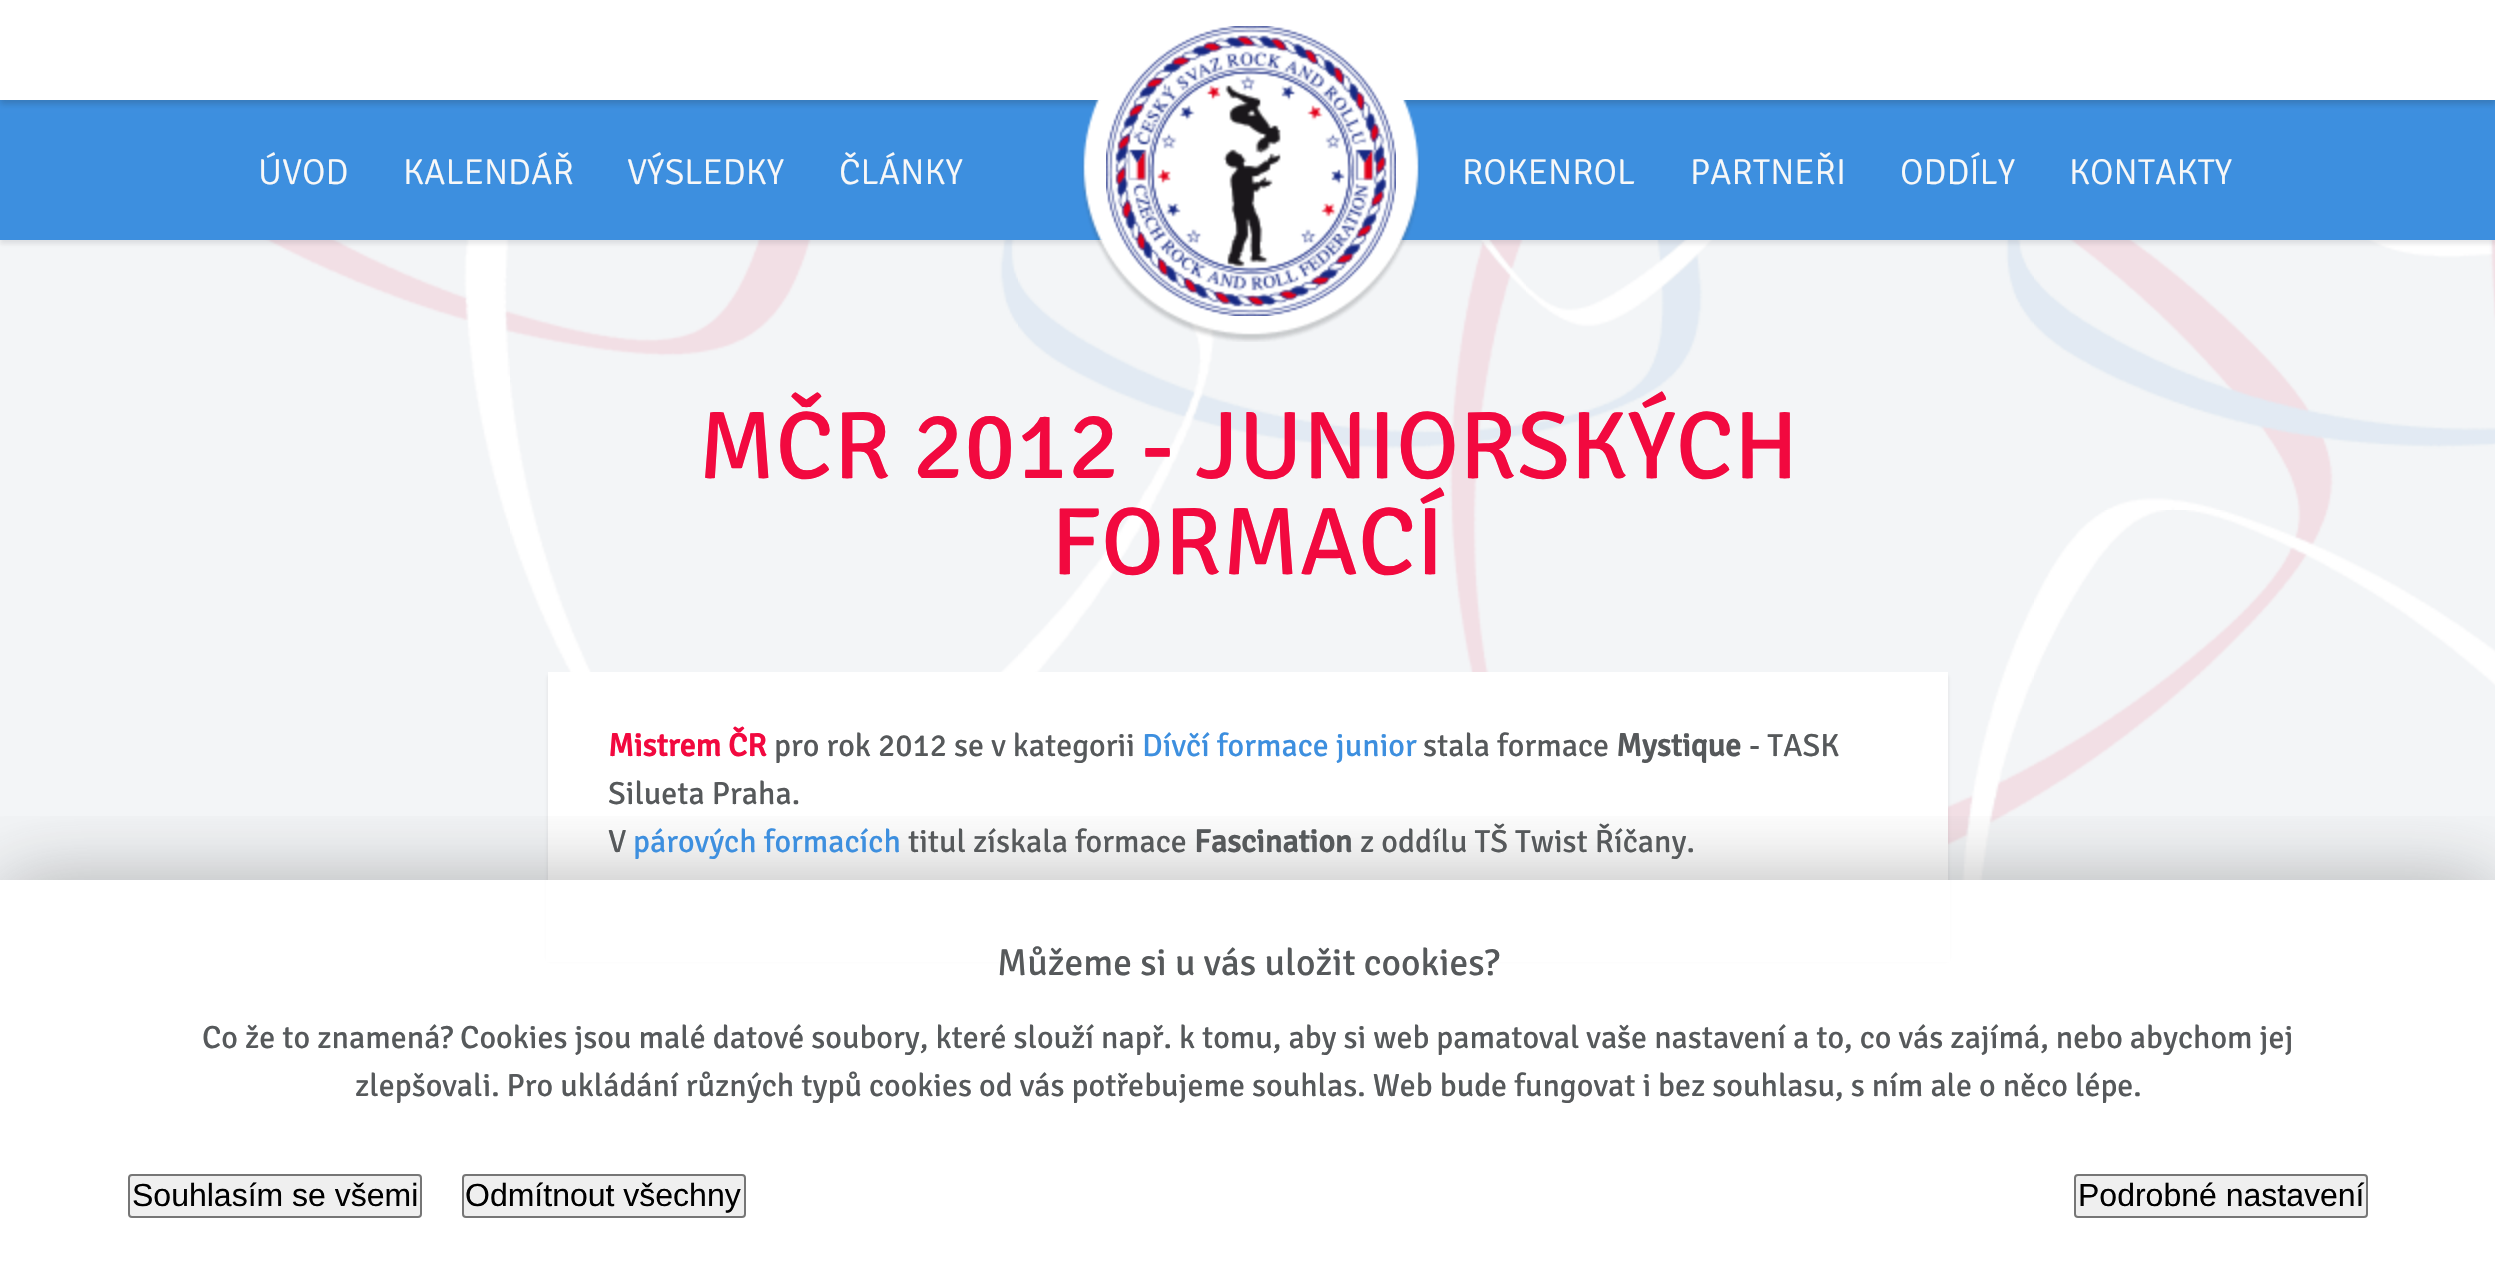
void draw(SkCanvas* canvas) {
  SkPaint paint;
  paint.setAntiAlias(true);
  auto face = [&](const char* family, int weight, float size, bool italic = false) {
    SkFontStyle style(weight, SkFontStyle::kNormal_Width,
      italic ? SkFontStyle::kItalic_Slant : SkFontStyle::kUpright_Slant);
    SkFont result(fontMgr->matchFamilyStyle(family, style), size);
    result.setSubpixel(true);
    return result;
  };
  auto paste = [&](const char* path, float x, float y, float w, float h) {
    auto image = SkImages::DeferredFromEncodedData(SkData::MakeFromFileName(path));
    canvas->drawImageRect(image, SkRect::MakeXYWH(x, y, w, h), SkSamplingOptions());
  };
  canvas->clear(0xffffffff);
  paste("img/1.png", 0, 240, 2495, 640);
  paint.setColor(0x1a202225);
  paint.setMaskFilter(SkMaskFilter::MakeBlur(kNormal_SkBlurStyle, 2));
  canvas->drawRect(SkRect::MakeXYWH(0, 4, 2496, 240), paint);
  paint.setMaskFilter(nullptr);
  paint.setColor(0xff3d8fdf);
  canvas->drawRect(SkRect::MakeXYWH(0, 100, 2495, 140), paint);
  paint.setColor(0x33202225);
  paint.setMaskFilter(SkMaskFilter::MakeBlur(kNormal_SkBlurStyle, 3));
  canvas->drawRect(SkRect::MakeXYWH(0, 4, 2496, 100), paint);
  paint.setMaskFilter(nullptr);
  paint.setColor(0xffffffff);
  canvas->drawRect(SkRect::MakeXYWH(0, 0, 2495, 100), paint);
  paste("img/2.png", 1082, 100, 338, 242);
  paste("img/3.png", 1106, 26, 290, 290);
  paint.setColor(0x1a202225);
  paint.setMaskFilter(SkMaskFilter::MakeBlur(kNormal_SkBlurStyle, 2));
  canvas->drawRect(SkRect::MakeXYWH(548, 676, 1400, 284), paint);
  paint.setMaskFilter(nullptr);
  paint.setColor(0xffffffff);
  canvas->drawRect(SkRect::MakeXYWH(548, 672, 1400, 208), paint);
  canvas->drawRect(SkRect::MakeXYWH(546, 880, 1404, 82), paint);
  canvas->save();
  canvas->clipRect(SkRect::MakeXYWH(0, 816, 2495, 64));
  paint.setColor(0x663b3b3b);
  paint.setMaskFilter(SkMaskFilter::MakeBlur(kNormal_SkBlurStyle, 40));
  canvas->drawRect(SkRect::MakeXYWH(0, 882, 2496, 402), paint);
  paint.setMaskFilter(nullptr);
  canvas->restore();
  paint.setColor(0xffefefef);
  canvas->drawRoundRect(SkRect::MakeXYWH(129, 1175, 292, 42), 3, 3, paint);
  paint.setStroke(true);
  paint.setStrokeWidth(2);
  paint.setColor(0xff767676);
  canvas->drawRoundRect(SkRect::MakeXYWH(129, 1175, 292, 42), 3, 3, paint);
  paint.setStroke(false);
  paint.setColor(0xffefefef);
  canvas->drawRoundRect(SkRect::MakeXYWH(463, 1175, 282, 42), 3, 3, paint);
  paint.setStroke(true);
  paint.setColor(0xff767676);
  canvas->drawRoundRect(SkRect::MakeXYWH(463, 1175, 282, 42), 3, 3, paint);
  paint.setStroke(false);
  paint.setColor(0xffefefef);
  canvas->drawRoundRect(SkRect::MakeXYWH(2075, 1175, 292, 42), 3, 3, paint);
  paint.setStroke(true);
  paint.setColor(0xff767676);
  canvas->drawRoundRect(SkRect::MakeXYWH(2075, 1175, 292, 42), 3, 3, paint);
  auto f0 = face("Signika", 300, 36);
  paint.setStroke(false);
  paint.setColor(0xfff8f8f8);
  {
    const struct { const char* s; float x, y; } items[] = {
      {"ÚVOD", 258, 184},
      {"KALENDÁŘ", 403, 184},
      {"VÝSLEDKY", 627, 184},
      {"ČLÁNKY", 839, 184},
      {"ROKENROL", 1462, 184},
      {"PARTNEŘI", 1690, 184},
      {"ODDÍLY", 1900, 184},
      {"KONTAKTY", 2069, 184},
    };
    for (auto [s, x, y] : items) {
      canvas->drawString(s, x, y, f0, paint);
    }
  }
  auto f1 = face("Signika", 400, 96);
  paint.setColor(0xfff2093f);
  canvas->drawString("MČR 2012 - JUNIORSKÝCH", 698, 478, f1, paint);
  canvas->drawString("FORMACÍ", 1051, 574, f1, paint);
  auto f2 = face("Signika", 700, 32);
  canvas->drawString("Mistrem ČR", 608, 756, f2, paint);
  auto f3 = face("Signika", 400, 32);
  paint.setColor(0xff56595b);
  canvas->drawString("pro rok 2012 se v kategorii", 774, 756, f3, paint);
  paint.setColor(0xff3d8fdf);
  canvas->drawString("Dívčí formace junior", 1142, 756, f3, paint);
  paint.setColor(0xff56595b);
  canvas->drawString("stala formace", 1423, 756, f3, paint);
  canvas->drawString("Mystique", 1616, 756, f2, paint);
  {
    const struct { const char* s; float x, y; } items[] = {
      {"- TASK", 1749, 756},
      {"Silueta Praha.", 608, 804},
      {"V", 608, 852},
    };
    for (auto [s, x, y] : items) {
      canvas->drawString(s, x, y, f3, paint);
    }
  }
  paint.setColor(0xff3d8fdf);
  canvas->drawString("párových formacích", 633, 852, f3, paint);
  paint.setColor(0xff56595b);
  canvas->drawString("titul získala formace", 908, 852, f3, paint);
  canvas->drawString("Fascination", 1194, 852, f2, paint);
  canvas->drawString("z oddílu TŠ Twist Říčany.", 1360, 852, f3, paint);
  auto f4 = face("Signika", 400, 37.5f);
  canvas->drawString("Můžeme si u vás uložit cookies?", 997, 975, f4, paint);
  canvas->drawString("Co že to znamená? Cookies jsou malé datové soubory, které slouží např. k tomu, aby si web pamatoval vaše nastavení a to, co vás zajímá, nebo abychom jej", 202, 1048, f3, paint);
  canvas->drawString("zlepšovali. Pro ukládání různých typů cookies od vás potřebujeme souhlas. Web bude fungovat i bez souhlasu, s ním ale o něco lépe.", 355, 1096, f3, paint);
  auto f5 = face("Liberation Sans", 400, 32);
  paint.setColor(0xff000000);
  {
    const struct { const char* s; float x, y; } items[] = {
      {"Souhlasím se všemi", 132, 1206},
      {"Odmítnout všechny", 465, 1206},
      {"Podrobné nastavení", 2078, 1206},
    };
    for (auto [s, x, y] : items) {
      canvas->drawString(s, x, y, f5, paint);
    }
  }
}
